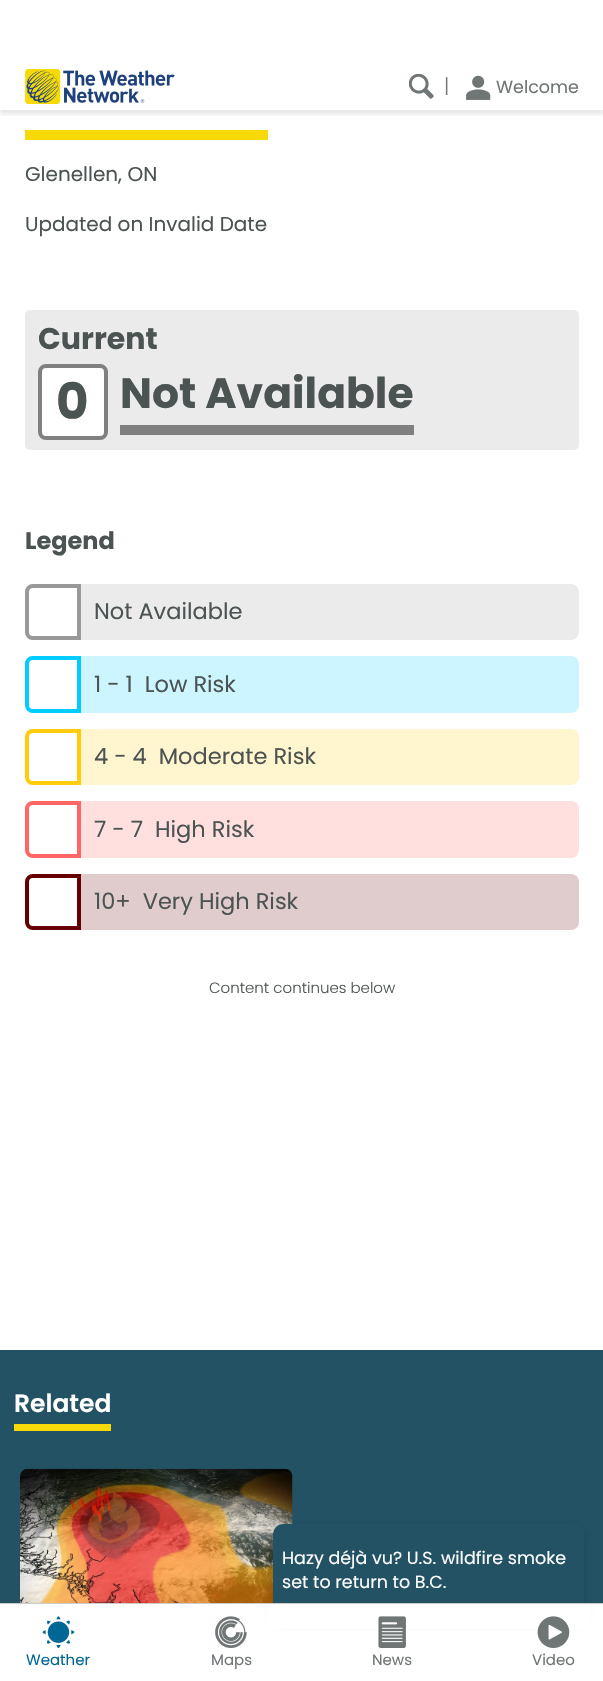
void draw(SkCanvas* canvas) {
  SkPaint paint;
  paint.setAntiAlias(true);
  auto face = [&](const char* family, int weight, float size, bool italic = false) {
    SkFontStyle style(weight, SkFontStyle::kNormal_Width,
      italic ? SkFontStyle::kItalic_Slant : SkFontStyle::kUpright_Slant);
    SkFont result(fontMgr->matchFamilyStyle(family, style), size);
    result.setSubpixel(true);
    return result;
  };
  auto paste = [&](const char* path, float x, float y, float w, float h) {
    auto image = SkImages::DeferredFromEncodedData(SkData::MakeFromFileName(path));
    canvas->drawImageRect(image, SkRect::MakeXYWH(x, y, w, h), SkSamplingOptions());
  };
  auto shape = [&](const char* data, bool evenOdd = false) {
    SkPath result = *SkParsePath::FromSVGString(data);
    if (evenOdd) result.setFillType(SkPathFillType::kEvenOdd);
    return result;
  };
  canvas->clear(0xffffffff);
  canvas->save();
  canvas->clipRect(SkRect::MakeXYWH(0, 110, 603, 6));
  paint.setColor(0x1a000000);
  paint.setMaskFilter(SkMaskFilter::MakeBlur(kNormal_SkBlurStyle, 2.5f));
  canvas->drawRect(SkRect::MakeXYWH(0, 66, 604, 48), paint);
  paint.setMaskFilter(nullptr);
  canvas->restore();
  paste("img/1.png", 25, 69, 150, 35);
  paste("img/2.png", 409, 74, 25, 25);
  paste("img/3.png", 466, 75, 25, 25);
  paint.setColor(0xff235265);
  canvas->drawRect(SkRect::MakeXYWH(0, 1350, 603, 253), paint);
  paste("img/8.png", 20, 1468, 273, 135);
  paint.setColor(0x29000000);
  paint.setMaskFilter(SkMaskFilter::MakeBlur(kNormal_SkBlurStyle, 4));
  canvas->drawRoundRect(SkRect::MakeXYWH(273, 1528, 311, 95), 10, 10, paint);
  paint.setMaskFilter(nullptr);
  paint.setColor(0xff235265);
  canvas->drawRoundRect(SkRect::MakeXYWH(273, 1524, 311, 95), 10, 10, paint);
  paint.setColor(0xffffffff);
  canvas->drawRect(SkRect::MakeXYWH(267, 1604, 323, 25), paint);
  paint.setColor(0xffcccccc);
  canvas->drawRect(SkRect::MakeXYWH(0, 1603, 603, 1), paint);
  paste("img/4.png", 42, 1616, 33, 32);
  paste("img/5.png", 215, 1616, 32, 32);
  paste("img/6.png", 378, 1616, 28, 32);
  paste("img/7.png", 537, 1616, 33, 32);
  paint.setColor(0xfff6d906);
  canvas->drawRect(SkRect::MakeXYWH(25, 130, 243, 10), paint);
  paint.setColor(0xffebebeb);
  canvas->drawRoundRect(SkRect::MakeXYWH(25, 310, 554, 140), 5, 5, paint);
  paint.setColor(0xffffffff);
  canvas->drawRoundRect(SkRect::MakeXYWH(40, 366, 66, 72), 6, 6, paint);
  paint.setStroke(true);
  paint.setStrokeWidth(4);
  paint.setColor(0xff808080);
  canvas->drawRoundRect(SkRect::MakeXYWH(40, 366, 66, 72), 6, 6, paint);
  paint.setStroke(false);
  canvas->drawRect(SkRect::MakeXYWH(120, 425, 294, 10), paint);
  paint.setColor(0xffebebeb);
  canvas->drawRoundRect(SkRect::MakeXYWH(25, 584, 554, 56), 8, 8, paint);
  paint.setColor(0xffffffff);
  canvas->drawPath(shape("M33 586H79V638H33C29.5 638 27 635.5 27 632V592C27 588.5 29.5 586 33 586Z"), paint);
  paint.setStroke(true);
  paint.setColor(0xff999999);
  canvas->drawPath(shape("M33 586H79V638H33C29.5 638 27 635.5 27 632V592C27 588.5 29.5 586 33 586Z"), paint);
  paint.setStroke(false);
  paint.setColor(0xffccf5ff);
  canvas->drawRoundRect(SkRect::MakeXYWH(25, 656, 554, 57), 8, 8, paint);
  paint.setColor(0xffffffff);
  canvas->drawPath(shape("M33 658H79V711H33C29.5 711 27 708.5 27 705V664C27 660.5 29.5 658 33 658Z"), paint);
  paint.setStroke(true);
  paint.setColor(0xff00ccff);
  canvas->drawPath(shape("M33 658H79V711H33C29.5 711 27 708.5 27 705V664C27 660.5 29.5 658 33 658Z"), paint);
  paint.setStroke(false);
  paint.setColor(0xfffff5ce);
  canvas->drawRoundRect(SkRect::MakeXYWH(25, 729, 554, 56), 8, 8, paint);
  paint.setColor(0xffffffff);
  canvas->drawPath(shape("M33 731H79V783H33C29.5 783 27 780.5 27 777V737C27 733.5 29.5 731 33 731Z"), paint);
  paint.setStroke(true);
  paint.setColor(0xffffcc0c);
  canvas->drawPath(shape("M33 731H79V783H33C29.5 783 27 780.5 27 777V737C27 733.5 29.5 731 33 731Z"), paint);
  paint.setStroke(false);
  paint.setColor(0xffffe0df);
  canvas->drawRoundRect(SkRect::MakeXYWH(25, 801, 554, 57), 8, 8, paint);
  paint.setColor(0xffffffff);
  canvas->drawPath(shape("M33 803H79V856H33C29.5 856 27 853.5 27 850V809C27 805.5 29.5 803 33 803Z"), paint);
  paint.setStroke(true);
  paint.setColor(0xffff6666);
  canvas->drawPath(shape("M33 803H79V856H33C29.5 856 27 853.5 27 850V809C27 805.5 29.5 803 33 803Z"), paint);
  paint.setStroke(false);
  paint.setColor(0xffe0cccc);
  canvas->drawRoundRect(SkRect::MakeXYWH(25, 874, 554, 56), 8, 8, paint);
  paint.setColor(0xffffffff);
  canvas->drawPath(shape("M33 876H79V928H33C29.5 928 27 925.5 27 922V882C27 878.5 29.5 876 33 876Z"), paint);
  paint.setStroke(true);
  paint.setColor(0xff660000);
  canvas->drawPath(shape("M33 876H79V928H33C29.5 928 27 925.5 27 922V882C27 878.5 29.5 876 33 876Z"), paint);
  paint.setStroke(false);
  paint.setColor(0xfff6d906);
  canvas->drawRect(SkRect::MakeXYWH(14, 1424, 97, 7), paint);
  auto f0 = face("Poppins", 300, 20);
  paint.setColor(0xff707575);
  canvas->drawString("|", 444, 93, f0, paint);
  auto f1 = face("Poppins", 400, 17.5f);
  canvas->drawString("Welcome", 496, 93, f1, paint);
  auto f2 = face("Poppins", 400, 15);
  paint.setColor(0xff006695);
  canvas->drawString("Weather", 26, 1665, f2, paint);
  paint.setColor(0xff707575);
  {
    const struct { const char* s; float x, y; } items[] = {
      {"Maps", 211, 1665},
      {"News", 372, 1665},
      {"Video", 532, 1665},
    };
    for (auto [s, x, y] : items) {
      canvas->drawString(s, x, y, f2, paint);
    }
  }
  auto f3 = face("Poppins", 400, 20);
  paint.setColor(0xff4c5353);
  canvas->drawString("Glenellen, ON", 25, 181, f3, paint);
  canvas->drawString("Updated on Invalid Date", 25, 231, f3, paint);
  auto f4 = face("Poppins", 700, 30);
  canvas->drawString("Current", 38, 349, f4, paint);
  auto f5 = face("Poppins", 700, 50);
  canvas->drawString("0", 56, 419, f5, paint);
  auto f6 = face("Poppins", 700, 42.5f);
  canvas->drawString("Not Available", 120, 408, f6, paint);
  auto f7 = face("Poppins", 700, 24);
  canvas->drawString("Legend", 25, 549, f7, paint);
  auto f8 = face("Poppins", 400, 22.5f);
  {
    const struct { const char* s; float x, y; } items[] = {
      {"Not Available", 94, 619},
      {"1 - 1  Low Risk", 94, 692},
      {"4 - 4  Moderate Risk", 94, 764},
      {"7 - 7  High Risk", 94, 837},
      {"10+  Very High Risk", 94, 909},
    };
    for (auto [s, x, y] : items) {
      canvas->drawString(s, x, y, f8, paint);
    }
  }
  auto f9 = face("Poppins", 300, 15);
  canvas->drawString("Content continues below", 209, 993, f9, paint);
  auto f10 = face("Poppins", 600, 25);
  paint.setColor(0xffffffff);
  canvas->drawString("Related", 14, 1412, f10, paint);
  canvas->drawString("Hazy déjà vu? U.S. wildfire smoke", 282, 1564, f1, paint);
  canvas->drawString("set to return to B.C.", 282, 1588, f1, paint);
}
